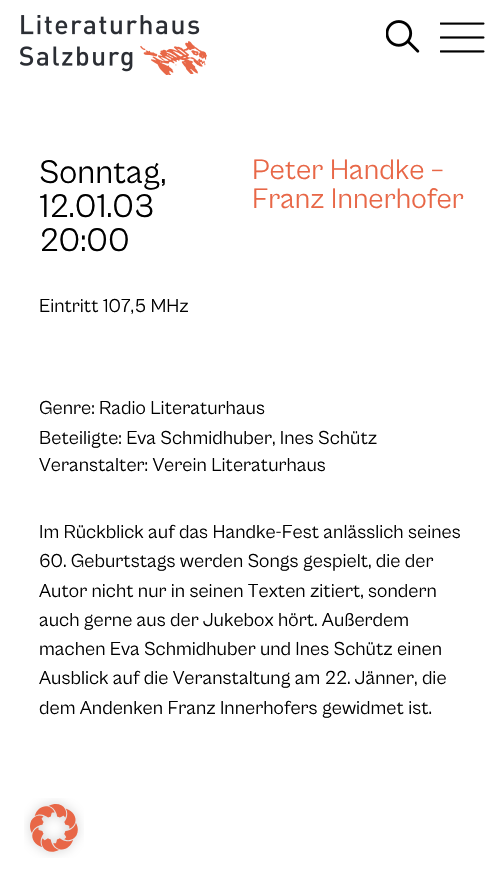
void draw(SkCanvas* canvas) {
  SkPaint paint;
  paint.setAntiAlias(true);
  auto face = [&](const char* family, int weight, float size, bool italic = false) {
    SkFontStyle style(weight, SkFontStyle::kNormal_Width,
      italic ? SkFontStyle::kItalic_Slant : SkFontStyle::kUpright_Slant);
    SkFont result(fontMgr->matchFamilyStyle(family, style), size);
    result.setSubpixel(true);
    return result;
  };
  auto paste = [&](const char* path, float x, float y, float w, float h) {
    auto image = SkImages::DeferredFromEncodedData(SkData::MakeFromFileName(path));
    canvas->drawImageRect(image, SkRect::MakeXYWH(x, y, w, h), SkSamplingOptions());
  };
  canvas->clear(0xffffffff);
  paste("img/1.png", 20, 15, 187, 60);
  paste("img/2.png", 386, 20, 34, 33);
  paste("img/3.png", 440, 22, 45, 31);
  paste("img/4.png", 24, 798, 60, 60);
  auto f0 = face("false", 400, 34);
  paint.setColor(0xff000000);
  {
    const struct { const char* s; float x, y; } items[] = {
      {"Sonntag,", 39, 183},
      {"12.01.03", 39, 217},
      {"20:00", 39, 251},
    };
    for (auto [s, x, y] : items) {
      canvas->drawString(s, x, y, f0, paint);
    }
  }
  auto f1 = face("false", 400, 29.25f);
  paint.setColor(0xffe86747);
  canvas->drawString("Peter Handke –", 252, 179, f1, paint);
  canvas->drawString("Franz Innerhofer", 252, 208, f1, paint);
  auto f2 = face("false", 400, 19.5f);
  paint.setColor(0xff000000);
  {
    const struct { const char* s; float x, y; } items[] = {
      {"Eintritt 107,5 MHz", 39, 312},
      {"Genre: Radio Literaturhaus", 39, 414},
      {"Beteiligte: Eva Schmidhuber, Ines Schütz", 39, 444},
      {"Veranstalter: Verein Literaturhaus", 39, 471},
      {"Im Rückblick auf das Handke-Fest anlässlich seines", 39, 538},
      {"60. Geburtstags werden Songs gespielt, die der", 39, 567},
      {"Autor nicht nur in seinen Texten zitiert, sondern", 39, 597},
      {"auch gerne aus der Jukebox hört. Außerdem", 39, 626},
      {"machen Eva Schmidhuber und Ines Schütz einen", 39, 655},
      {"Ausblick auf die Veranstaltung am 22. Jänner, die", 39, 684},
      {"dem Andenken Franz Innerhofers gewidmet ist.", 39, 714},
    };
    for (auto [s, x, y] : items) {
      canvas->drawString(s, x, y, f2, paint);
    }
  }
}
